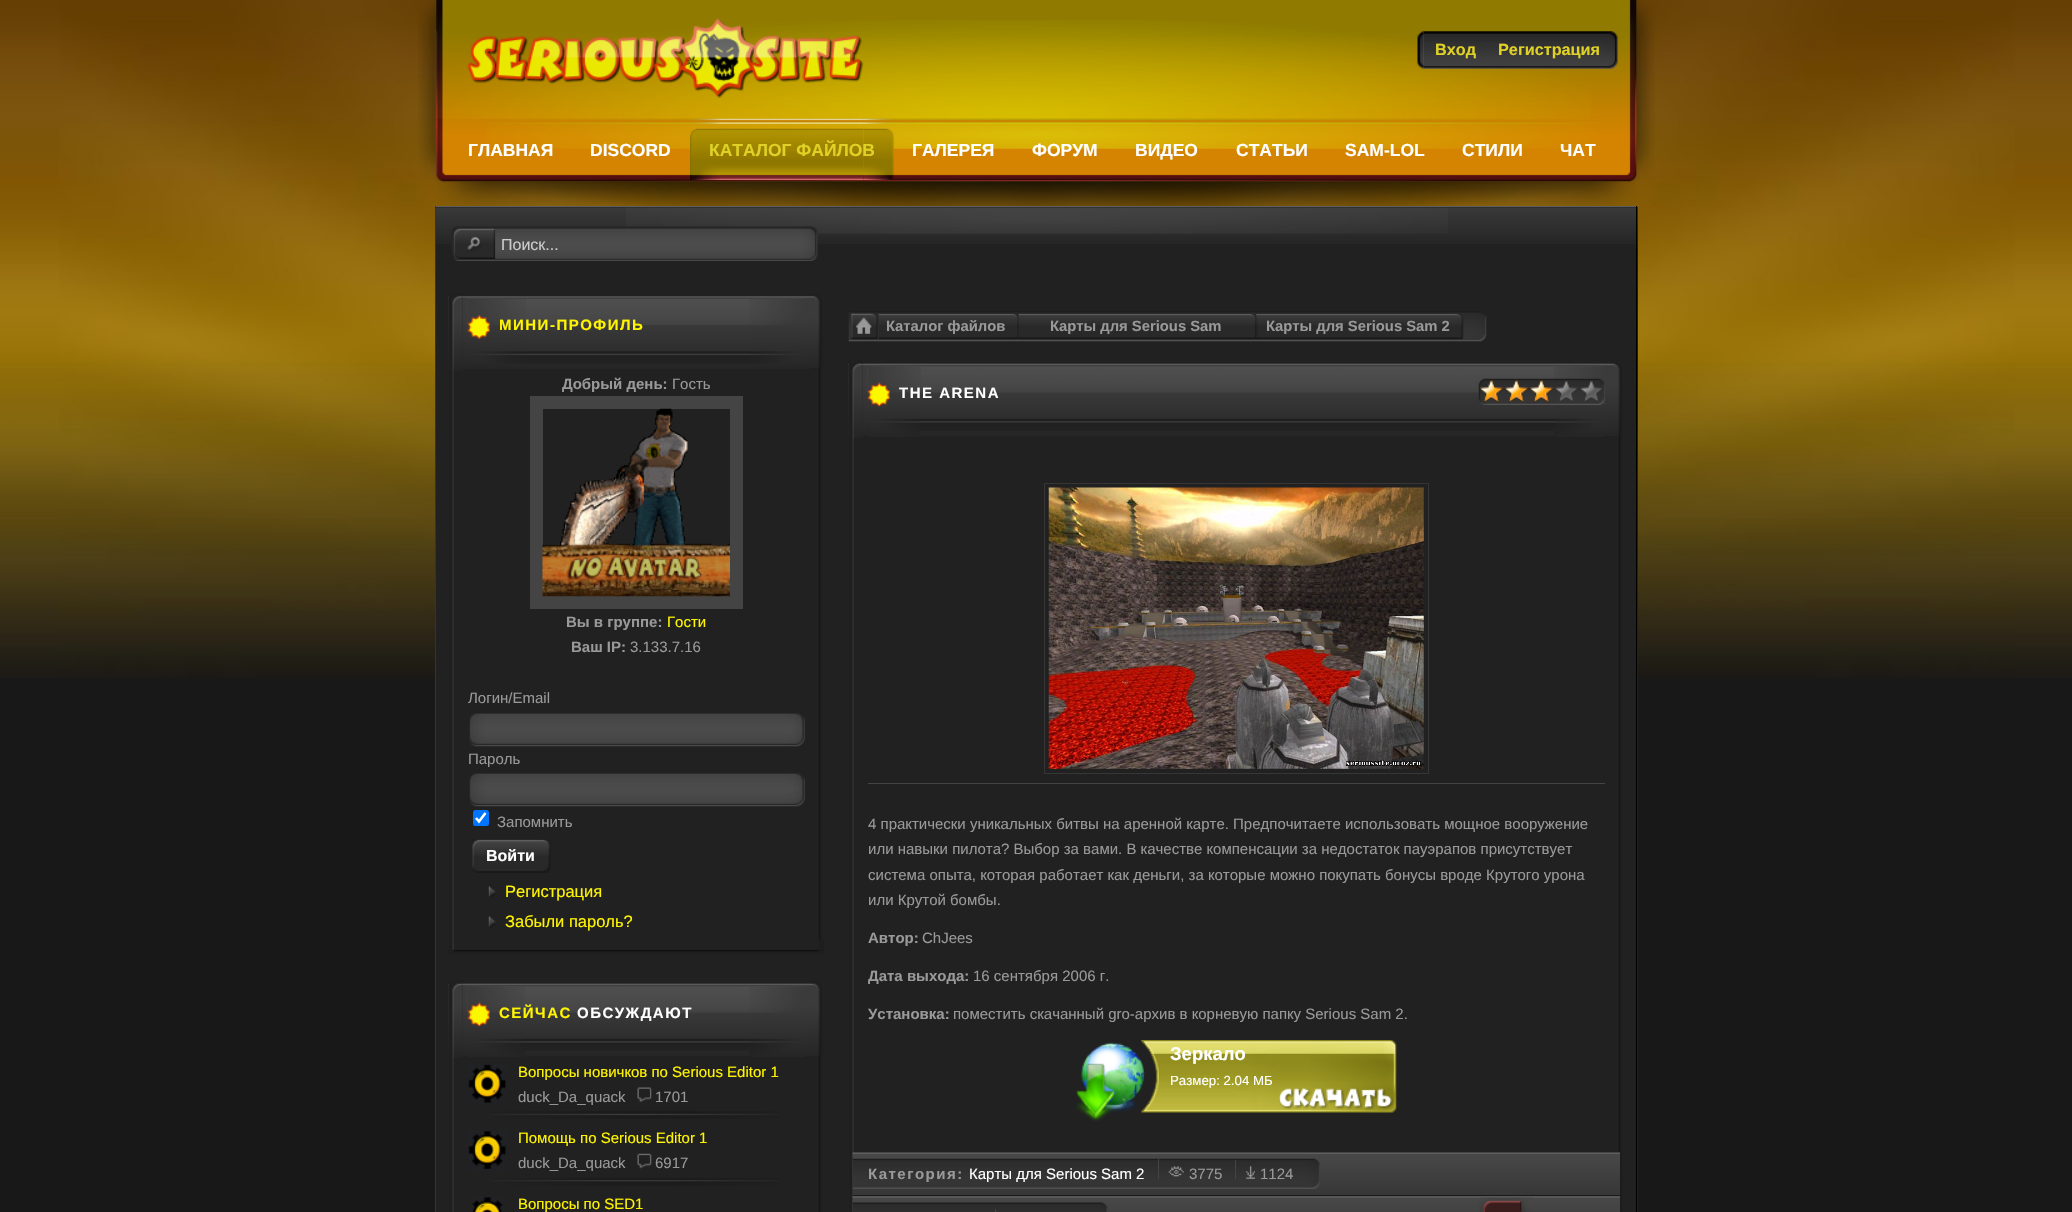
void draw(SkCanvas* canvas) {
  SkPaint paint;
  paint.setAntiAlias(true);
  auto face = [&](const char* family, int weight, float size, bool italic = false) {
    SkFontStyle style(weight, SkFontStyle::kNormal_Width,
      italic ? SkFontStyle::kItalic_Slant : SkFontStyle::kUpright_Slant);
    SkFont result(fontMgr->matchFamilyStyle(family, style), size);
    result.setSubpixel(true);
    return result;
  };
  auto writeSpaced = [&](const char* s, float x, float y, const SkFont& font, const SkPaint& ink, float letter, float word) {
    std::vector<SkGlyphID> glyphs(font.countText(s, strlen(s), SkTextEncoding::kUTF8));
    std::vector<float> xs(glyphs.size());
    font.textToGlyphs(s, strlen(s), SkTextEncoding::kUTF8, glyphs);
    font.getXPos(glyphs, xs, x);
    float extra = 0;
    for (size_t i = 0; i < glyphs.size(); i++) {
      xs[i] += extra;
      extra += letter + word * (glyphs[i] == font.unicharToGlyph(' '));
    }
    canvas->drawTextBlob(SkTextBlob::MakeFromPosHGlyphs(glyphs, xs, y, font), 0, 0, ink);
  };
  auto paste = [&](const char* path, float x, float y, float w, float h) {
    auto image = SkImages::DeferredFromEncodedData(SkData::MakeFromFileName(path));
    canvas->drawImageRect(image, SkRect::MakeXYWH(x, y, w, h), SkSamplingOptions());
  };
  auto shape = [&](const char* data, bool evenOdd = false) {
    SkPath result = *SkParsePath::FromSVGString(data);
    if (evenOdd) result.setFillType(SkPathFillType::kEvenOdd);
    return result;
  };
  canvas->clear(0xff181818);
  paste("img/1.png", 0, 0, 2072, 678);
  paste("img/2.png", 59, 0, 1956, 679);
  paste("img/3.png", 418, 0, 1237, 182);
  paste("img/4.png", 436, 20, 1155, 99);
  paste("img/5.png", 467, 18, 397, 81);
  paste("img/6.png", 1423, 31, 195, 38);
  paste("img/7.png", 1417, 31, 7, 38);
  paste("img/8.png", 487, 118, 1110, 31);
  paste("img/9.png", 720, 118, 144, 62);
  paste("img/10.png", 690, 118, 30, 62);
  paste("img/11.png", 863, 118, 31, 62);
  paste("img/12.png", 437, 181, 1199, 25);
  paint.setColor(0xff212121);
  canvas->drawRect(SkRect::MakeXYWH(436, 207, 1202, 1005), paint);
  paste("img/13.png", 436, 207, 1202, 37);
  {
    const struct { float x, y, w, h; SkColor color; } items[] = {
      {435, 206, 1203, 1, 0xff5e5e5e},
      {1636, 206, 1, 1006, 0xff000000},
      {435, 206, 1, 1006, 0xff333333},
    };
    for (auto [x, y, w, h, color] : items) {
      paint.setColor(color);
      canvas->drawRect(SkRect::MakeXYWH(x, y, w, h), paint);
    }
  }
  paste("img/14.png", 626, 207, 822, 27);
  paste("img/15.png", 451, 226, 367, 35);
  paste("img/16.png", 448, 296, 376, 73);
  paste("img/17.png", 449, 292, 14, 648);
  paste("img/18.png", 810, 292, 14, 663);
  paste("img/19.png", 448, 940, 376, 15);
  paste("img/20.png", 452, 292, 11, 79);
  paste("img/21.png", 810, 293, 14, 75);
  paste("img/22.png", 449, 940, 5, 12);
  paint.setColor(0xff1e1e1e);
  canvas->drawRect(SkRect::MakeXYWH(819, 940, 5, 12), paint);
  paste("img/23.png", 467, 298, 338, 66);
  paste("img/24.png", 467, 299, 59, 65);
  paste("img/25.png", 749, 299, 56, 65);
  paste("img/26.png", 467, 315, 23, 24);
  paint.setStroke(true);
  paint.setStrokeWidth(13);
  paint.setColor(0xff444444);
  canvas->drawRect(SkRect::MakeXYWH(536.5f, 402.5f, 200, 200), paint);
  paste("img/27.png", 542, 408, 188, 189);
  paste("img/28.png", 469, 713, 336, 34);
  paste("img/28.png", 469, 773, 336, 34);
  paint.setStroke(false);
  paint.setColor(0xff0075ff);
  canvas->drawRoundRect(SkRect::MakeXYWH(473, 810, 16, 16), 2.5f, 2.5f, paint);
  paint.setStroke(true);
  paint.setStrokeWidth(2.6f);
  paint.setColor(0xffffffff);
  canvas->drawPath(shape("M476 818L479 821.5L485.5 813"), paint);
  paste("img/29.png", 480, 839, 71, 34);
  paste("img/30.png", 472, 839, 8, 34);
  paste("img/31.png", 488, 886, 8, 12);
  paste("img/31.png", 488, 916, 8, 12);
  paste("img/32.png", 448, 983, 376, 73);
  paste("img/33.png", 449, 980, 14, 232);
  paste("img/34.png", 810, 980, 14, 232);
  paste("img/35.png", 452, 980, 11, 78);
  paste("img/36.png", 810, 980, 14, 76);
  paste("img/37.png", 467, 986, 338, 65);
  paste("img/38.png", 467, 986, 58, 71);
  paste("img/39.png", 749, 986, 56, 71);
  paste("img/40.png", 467, 1002, 23, 25);
  paste("img/41.png", 468, 1064, 38, 39);
  paste("img/42.png", 637, 1087, 15, 16);
  paste("img/43.png", 491, 1111, 288, 8);
  paste("img/44.png", 468, 1131, 39, 39);
  paste("img/45.png", 637, 1153, 15, 16);
  paste("img/46.png", 492, 1178, 286, 8);
  paste("img/47.png", 472, 1197, 31, 15);
  paste("img/48.png", 848, 311, 639, 31);
  paste("img/49.png", 850, 313, 29, 27);
  paste("img/50.png", 878, 314, 142, 26);
  paste("img/52.png", 1256, 314, 208, 26);
  paste("img/51.png", 1018, 314, 240, 26);
  paste("img/53.png", 848, 363, 776, 73);
  paste("img/54.png", 849, 360, 14, 852);
  paste("img/55.png", 1610, 360, 14, 852);
  paste("img/56.png", 852, 360, 11, 78);
  paste("img/57.png", 1610, 360, 14, 76);
  paste("img/58.png", 867, 366, 738, 65);
  paste("img/59.png", 867, 366, 54, 71);
  paste("img/60.png", 1554, 366, 51, 71);
  paste("img/40.png", 867, 382, 23, 25);
  paste("img/61.png", 1478, 378, 127, 27);
  paste("img/62.png", 1480, 381, 122, 20);
  paste("img/63.png", 1479, 379, 75, 24);
  paint.setStrokeWidth(1);
  paint.setColor(0xff363636);
  canvas->drawRect(SkRect::MakeXYWH(1044.5f, 483.5f, 384, 290), paint);
  paste("img/64.png", 1048, 487, 376, 282);
  paint.setStroke(false);
  paint.setColor(0xff444444);
  canvas->drawRect(SkRect::MakeXYWH(868, 783, 737, 1), paint);
  paste("img/65.png", 1076, 1040, 321, 81);
  paste("img/66.png", 852, 1152, 768, 43);
  paint.setColor(0xff1a1a1a);
  canvas->drawRect(SkRect::MakeXYWH(853, 1195, 767, 1), paint);
  paste("img/67.png", 852, 1158, 468, 31);
  paste("img/68.png", 1168, 1166, 16, 11);
  paint.setColor(0xff444444);
  canvas->drawRect(SkRect::MakeXYWH(1158, 1159, 1, 20), paint);
  paste("img/69.png", 1246, 1166, 9, 13);
  canvas->drawRect(SkRect::MakeXYWH(1235, 1160, 1, 19), paint);
  paste("img/70.png", 852, 1196, 768, 16);
  paste("img/71.png", 852, 1202, 256, 10);
  canvas->drawRect(SkRect::MakeXYWH(995, 1209, 1, 3), paint);
  paste("img/72.png", 1479, 1197, 55, 15);
  auto f0 = face("Liberation Sans", 700, 16.25f);
  paint.setColor(0xffe0d126);
  canvas->drawString("Вход", 1435, 55, f0, paint);
  canvas->drawString("Регистрация", 1498, 55, f0, paint);
  auto f1 = face("Liberation Sans", 700, 17.5f);
  paint.setColor(0xffffffff);
  canvas->drawString("ГЛАВНАЯ", 468, 156, f1, paint);
  canvas->drawString("DISCORD", 590, 156, f1, paint);
  paint.setColor(0xffe0d126);
  canvas->drawString("КАТАЛОГ ФАЙЛОВ", 709, 156, f1, paint);
  paint.setColor(0xffffffff);
  {
    const struct { const char* s; float x, y; } items[] = {
      {"ГАЛЕРЕЯ", 912, 156},
      {"ФОРУМ", 1032, 156},
      {"ВИДЕО", 1135, 156},
      {"СТАТЬИ", 1236, 156},
      {"SAM-LOL", 1345, 156},
      {"CТИЛИ", 1462, 156},
      {"ЧАТ", 1560, 156},
    };
    for (auto [s, x, y] : items) {
      canvas->drawString(s, x, y, f1, paint);
    }
  }
  auto f2 = face("Liberation Sans", 400, 16);
  paint.setColor(0xffcccccc);
  canvas->drawString("Поиск...", 501, 250, f2, paint);
  auto f3 = face("Liberation Sans", 700, 15);
  paint.setColor(0xfffff500);
  writeSpaced("МИНИ-ПРОФИЛЬ", 499, 330, f3, paint, 1.5f, 0);
  paint.setColor(0xff999999);
  canvas->drawString("Добрый день:", 562, 389, f3, paint);
  auto f4 = face("Liberation Sans", 400, 15);
  canvas->drawString("Гость", 672, 389, f4, paint);
  canvas->drawString("Вы в группе:", 566, 627, f3, paint);
  paint.setColor(0xfffff500);
  canvas->drawString("Гости", 667, 627, f4, paint);
  paint.setColor(0xff999999);
  canvas->drawString("Ваш IP:", 571, 652, f3, paint);
  {
    const struct { const char* s; float x, y; } items[] = {
      {"3.133.7.16", 630, 652},
      {"Логин/Email", 468, 703},
      {"Пароль", 468, 764},
      {"Запомнить", 497, 827},
    };
    for (auto [s, x, y] : items) {
      canvas->drawString(s, x, y, f4, paint);
    }
  }
  auto f5 = face("Liberation Sans", 700, 16);
  paint.setColor(0xffffffff);
  canvas->drawString("Войти", 486, 861, f5, paint);
  auto f6 = face("Liberation Sans", 400, 16.5f);
  paint.setColor(0xfffff500);
  canvas->drawString("Регистрация", 505, 897, f6, paint);
  canvas->drawString("Забыли пароль?", 505, 927, f6, paint);
  writeSpaced("СЕЙЧАС", 499, 1018, f3, paint, 1.5f, 0);
  paint.setColor(0xffffffff);
  writeSpaced("ОБСУЖДАЮТ", 577, 1018, f3, paint, 1.5f, 0);
  paint.setColor(0xfffff500);
  canvas->drawString("Вопросы новичков по Serious Editor 1", 518, 1077, f4, paint);
  paint.setColor(0xff999999);
  canvas->drawString("duck_Da_quack", 518, 1102, f4, paint);
  canvas->drawString("1701", 655, 1102, f4, paint);
  paint.setColor(0xfffff500);
  canvas->drawString("Помощь по Serious Editor 1", 518, 1143, f4, paint);
  paint.setColor(0xff999999);
  canvas->drawString("duck_Da_quack", 518, 1168, f4, paint);
  canvas->drawString("6917", 655, 1168, f4, paint);
  paint.setColor(0xfffff500);
  canvas->drawString("Вопросы по SED1", 518, 1209, f4, paint);
  auto f7 = face("Liberation Sans", 700, 14.8f);
  paint.setColor(0xff999999);
  {
    const struct { const char* s; float x, y; } items[] = {
      {"Каталог файлов", 886, 331},
      {"Карты для Serious Sam", 1050, 331},
      {"Карты для Serious Sam 2", 1266, 331},
    };
    for (auto [s, x, y] : items) {
      canvas->drawString(s, x, y, f7, paint);
    }
  }
  paint.setColor(0xffffffff);
  writeSpaced("THE ARENA", 899, 398, f3, paint, 1.5f, 0);
  paint.setColor(0xff999999);
  {
    const struct { const char* s; float x, y; } items[] = {
      {"4 практически уникальных битвы на аренной карте. Предпочитаете использовать мощное вооружение", 868, 829},
      {"или навыки пилота? Выбор за вами. В качестве компенсации за недостаток пауэрапов присутствует", 868, 854},
      {"система опыта, которая работает как деньги, за которые можно покупать бонусы вроде Крутого урона", 868, 880},
      {"или Крутой бомбы.", 868, 905},
    };
    for (auto [s, x, y] : items) {
      canvas->drawString(s, x, y, f4, paint);
    }
  }
  canvas->drawString("Автор:", 868, 943, f3, paint);
  canvas->drawString("ChJees", 922, 943, f4, paint);
  canvas->drawString("Дата выхода:", 868, 981, f3, paint);
  canvas->drawString("16 сентября 2006 г.", 973, 981, f4, paint);
  canvas->drawString("Установка:", 868, 1019, f3, paint);
  canvas->drawString("поместить скачанный gro-архив в корневую папку Serious Sam 2.", 953, 1019, f4, paint);
  auto f8 = face("Liberation Sans", 700, 18.5f);
  paint.setColor(0xffffffff);
  canvas->drawString("Зеркало", 1170, 1060, f8, paint);
  auto f9 = face("Liberation Sans", 400, 13.25f);
  canvas->drawString("Размер: 2.04 MБ", 1170, 1085, f9, paint);
  paint.setColor(0xff999999);
  writeSpaced("Категория:", 868, 1179, f3, paint, 1.5f, 0);
  paint.setColor(0xffffffff);
  canvas->drawString("Карты для Serious Sam 2", 969, 1179, f4, paint);
  paint.setColor(0xff999999);
  canvas->drawString("3775", 1189, 1179, f4, paint);
  canvas->drawString("1124", 1260, 1179, f4, paint);
}
